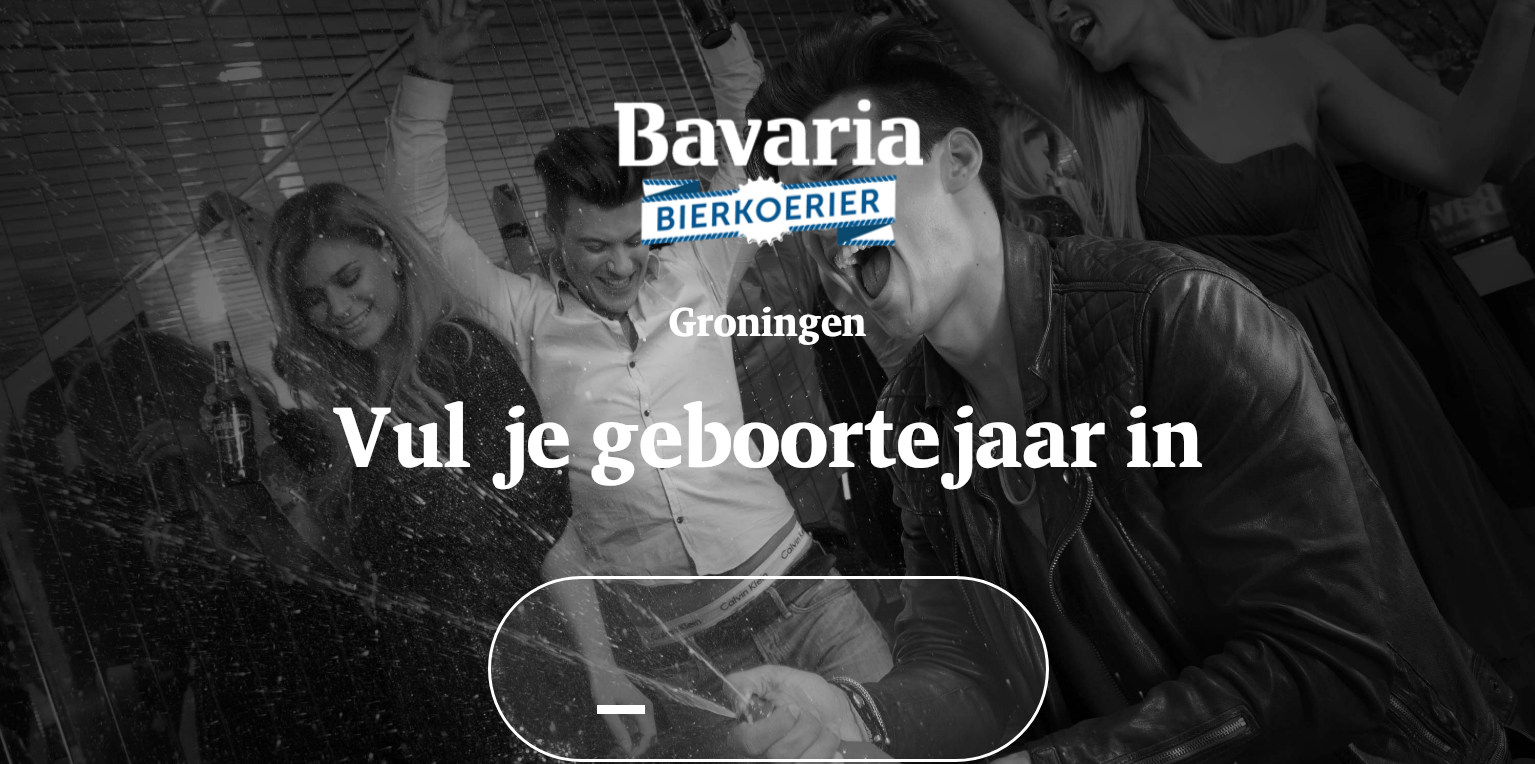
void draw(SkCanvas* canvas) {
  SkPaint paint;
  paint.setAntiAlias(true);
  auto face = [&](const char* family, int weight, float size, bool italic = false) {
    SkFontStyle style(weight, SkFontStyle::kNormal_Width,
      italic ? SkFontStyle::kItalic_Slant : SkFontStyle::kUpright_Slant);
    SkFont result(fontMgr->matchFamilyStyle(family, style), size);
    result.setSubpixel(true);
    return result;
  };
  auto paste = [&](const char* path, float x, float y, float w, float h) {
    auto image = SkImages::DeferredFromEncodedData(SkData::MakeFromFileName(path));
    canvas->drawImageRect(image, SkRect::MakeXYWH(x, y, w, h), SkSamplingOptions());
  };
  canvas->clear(0xffffffff);
  paste("img/1.png", 0, 0, 1535, 764);
  paste("img/2.png", 614, 98, 310, 150);
  paint.setColor(0x1affffff);
  canvas->drawRoundRect(SkRect::MakeXYWH(489.5f, 577.5f, 558, 183), 91.5f, 91.5f, paint);
  paint.setStroke(true);
  paint.setStrokeWidth(3);
  paint.setColor(0xffffffff);
  canvas->drawRoundRect(SkRect::MakeXYWH(489.5f, 577.5f, 558, 183), 91.5f, 91.5f, paint);
  paint.setStroke(false);
  canvas->drawRect(SkRect::MakeXYWH(597, 705, 48, 9), paint);
  auto f0 = face("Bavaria", 900, 37.5f);
  canvas->drawString("Groningen", 669, 336, f0, paint);
  auto f1 = face("Bavaria", 900, 78.75f);
  canvas->drawString("Vul je geboortejaar in", 332, 467, f1, paint);
}
